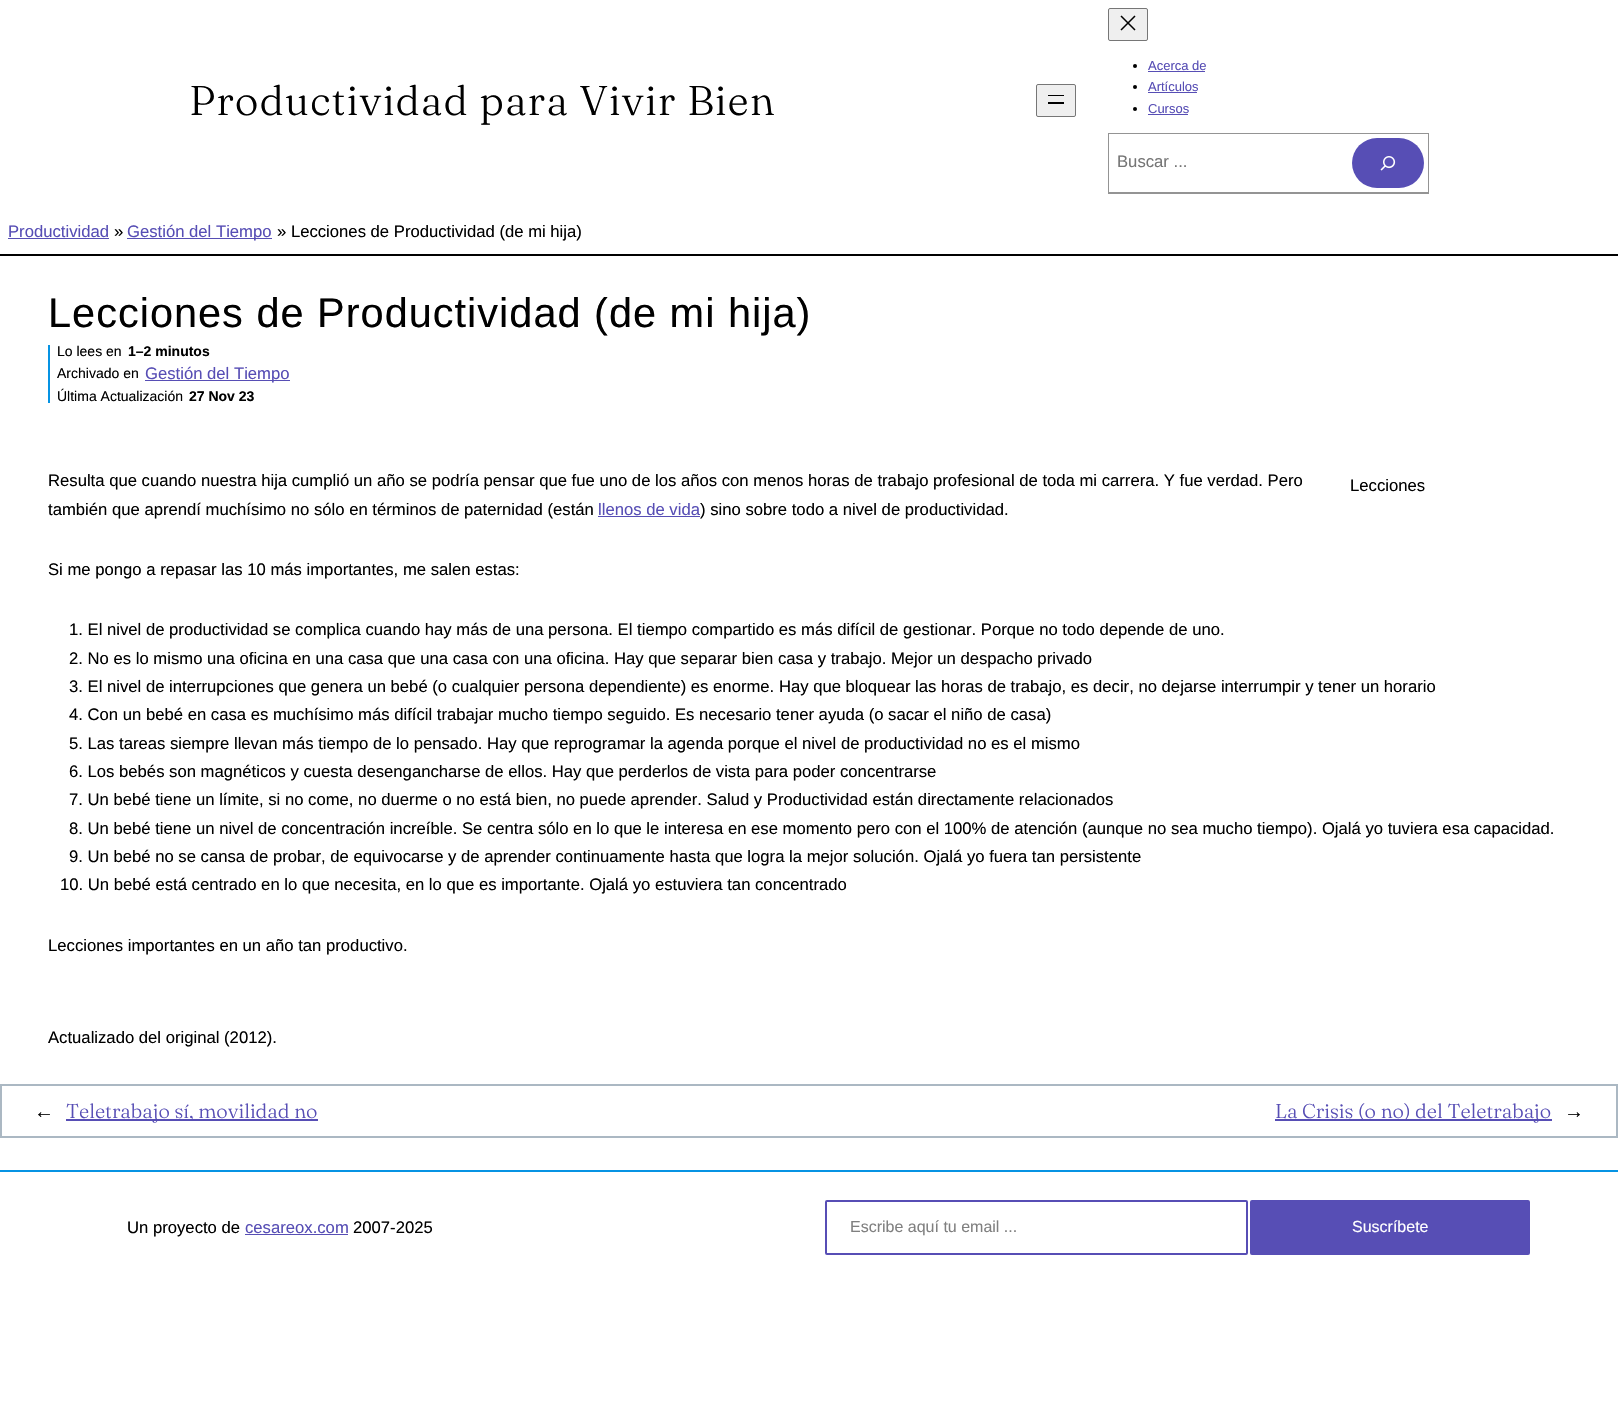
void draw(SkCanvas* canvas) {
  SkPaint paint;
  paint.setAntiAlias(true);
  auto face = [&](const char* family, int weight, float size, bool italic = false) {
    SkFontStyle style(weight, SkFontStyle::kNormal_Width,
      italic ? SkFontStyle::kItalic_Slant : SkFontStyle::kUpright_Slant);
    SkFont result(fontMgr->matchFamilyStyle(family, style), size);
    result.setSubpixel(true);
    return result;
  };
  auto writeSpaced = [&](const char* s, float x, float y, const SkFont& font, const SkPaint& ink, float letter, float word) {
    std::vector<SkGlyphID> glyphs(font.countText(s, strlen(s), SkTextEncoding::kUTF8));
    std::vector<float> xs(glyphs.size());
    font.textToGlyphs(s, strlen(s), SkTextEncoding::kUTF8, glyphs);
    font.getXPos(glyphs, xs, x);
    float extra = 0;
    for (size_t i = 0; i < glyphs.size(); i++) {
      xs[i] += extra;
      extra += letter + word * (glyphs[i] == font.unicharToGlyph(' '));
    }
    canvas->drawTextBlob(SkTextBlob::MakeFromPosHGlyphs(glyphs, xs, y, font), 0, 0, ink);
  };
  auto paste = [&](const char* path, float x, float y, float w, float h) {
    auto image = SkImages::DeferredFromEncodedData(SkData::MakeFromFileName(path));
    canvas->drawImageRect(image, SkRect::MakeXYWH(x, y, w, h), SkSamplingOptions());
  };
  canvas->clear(0xffffffff);
  paint.setColor(0xffefefef);
  canvas->drawRoundRect(SkRect::MakeXYWH(1036.5f, 84.5f, 39, 32), 1.5f, 1.5f, paint);
  paint.setStroke(true);
  paint.setStrokeWidth(1);
  paint.setColor(0xff767676);
  canvas->drawRoundRect(SkRect::MakeXYWH(1036.5f, 84.5f, 39, 32), 1.5f, 1.5f, paint);
  paint.setStroke(false);
  paint.setColor(0xff000000);
  canvas->drawRect(SkRect::MakeXYWH(1048, 95, 16, 1), paint);
  canvas->drawRect(SkRect::MakeXYWH(1048, 102, 16, 2), paint);
  paint.setColor(0xffefefef);
  canvas->drawRoundRect(SkRect::MakeXYWH(1108.5f, 8.5f, 39, 32), 1.5f, 1.5f, paint);
  paint.setStroke(true);
  paint.setColor(0xff767676);
  canvas->drawRoundRect(SkRect::MakeXYWH(1108.5f, 8.5f, 39, 32), 1.5f, 1.5f, paint);
  paste("img/1.png", 1120, 15, 16, 16);
  paint.setStroke(false);
  paint.setColor(0xff000000);
  canvas->drawCircle(1135, 66, 2, paint);
  paint.setColor(0xff574eb5);
  canvas->drawRect(SkRect::MakeXYWH(1148, 71, 57, 1), paint);
  paint.setColor(0xff000000);
  canvas->drawCircle(1135, 87, 2, paint);
  paint.setColor(0xff574eb5);
  canvas->drawRect(SkRect::MakeXYWH(1148, 92, 49, 1), paint);
  paint.setColor(0xff000000);
  canvas->drawCircle(1135, 109, 2, paint);
  {
    const struct { float x, y, w, h; SkColor color; } items[] = {
      {1148, 114, 40, 1, 0xff574eb5},
      {1108, 133, 321, 1, 0xff949494},
      {1428, 133, 1, 61, 0xff949494},
      {1108, 192, 321, 2, 0xff949494},
      {1108, 133, 1, 61, 0xff949494},
    };
    for (auto [x, y, w, h, color] : items) {
      paint.setColor(color);
      canvas->drawRect(SkRect::MakeXYWH(x, y, w, h), paint);
    }
  }
  paint.setColor(0xff574eb5);
  canvas->drawRoundRect(SkRect::MakeXYWH(1352, 138, 72, 50), 25, 25, paint);
  paste("img/2.png", 1380, 156, 16, 15);
  {
    const struct { float x, y, w, h; SkColor color; } items[] = {
      {0, 254, 1618, 2, 0xff000000},
      {8, 238, 101, 1, 0xff574eb5},
      {127, 238, 145, 1, 0xff574eb5},
      {48, 345, 2, 58, 0xff0693e3},
      {145, 380, 145, 1, 0xff574eb5},
      {598, 516, 102, 1, 0xff574eb5},
    };
    for (auto [x, y, w, h, color] : items) {
      paint.setColor(color);
      canvas->drawRect(SkRect::MakeXYWH(x, y, w, h), paint);
    }
  }
  paint.setStroke(true);
  paint.setStrokeWidth(2);
  paint.setColor(0xffabb8c3);
  canvas->drawRect(SkRect::MakeXYWH(1, 1085, 1616, 52), paint);
  paint.setStroke(false);
  {
    const struct { float x, y, w, h; SkColor color; } items[] = {
      {66, 1119, 252, 2, 0xff574eb5},
      {1275, 1119, 277, 2, 0xff574eb5},
      {0, 1170, 1618, 2, 0xff0693e3},
      {245, 1234, 103, 1, 0xff574eb5},
    };
    for (auto [x, y, w, h, color] : items) {
      paint.setColor(color);
      canvas->drawRect(SkRect::MakeXYWH(x, y, w, h), paint);
    }
  }
  paint.setStroke(true);
  canvas->drawRoundRect(SkRect::MakeXYWH(826, 1201, 421, 53), 1, 1, paint);
  paint.setStroke(false);
  canvas->drawRoundRect(SkRect::MakeXYWH(1251, 1201, 278, 53), 1, 1, paint);
  paint.setStroke(true);
  canvas->drawRoundRect(SkRect::MakeXYWH(1251, 1201, 278, 53), 1, 1, paint);
  auto f0 = face("Fraunces", 300, 41.5f);
  paint.setStroke(false);
  paint.setColor(0xff000000);
  writeSpaced("Productividad para Vivir Bien", 189, 115, f0, paint, 1, 0);
  auto f1 = face("Liberation Sans", 400, 13);
  paint.setColor(0xff574eb5);
  {
    const struct { const char* s; float x, y; } items[] = {
      {"Acerca de", 1148, 70},
      {"Artículos", 1148, 91},
      {"Cursos", 1148, 113},
    };
    for (auto [s, x, y] : items) {
      canvas->drawString(s, x, y, f1, paint);
    }
  }
  auto f2 = face("Liberation Sans", 400, 16.67f);
  paint.setColor(0xff757575);
  canvas->drawString("Buscar ...", 1117, 167, f2, paint);
  paint.setColor(0xff574eb5);
  canvas->drawString("Productividad", 8, 237, f2, paint);
  paint.setColor(0xff000000);
  canvas->drawString("»", 114, 237, f2, paint);
  paint.setColor(0xff574eb5);
  canvas->drawString("Gestión del Tiempo", 127, 237, f2, paint);
  paint.setColor(0xff000000);
  canvas->drawString("» Lecciones de Productividad (de mi hija)", 277, 237, f2, paint);
  auto f3 = face("Liberation Sans", 400, 41.5f);
  writeSpaced("Lecciones de Productividad (de mi hija)", 48, 327, f3, paint, 1, 0);
  auto f4 = face("Liberation Sans", 400, 14);
  canvas->drawString("Lo lees en", 57, 356, f4, paint);
  auto f5 = face("Liberation Sans", 700, 14);
  canvas->drawString("1–2 minutos", 128, 356, f5, paint);
  canvas->drawString("Archivado en", 57, 378, f4, paint);
  paint.setColor(0xff574eb5);
  canvas->drawString("Gestión del Tiempo", 145, 379, f2, paint);
  paint.setColor(0xff000000);
  canvas->drawString("Última Actualización", 57, 401, f4, paint);
  canvas->drawString("27 Nov 23", 189, 401, f5, paint);
  canvas->drawString("Resulta que cuando nuestra hija cumplió un año se podría pensar que fue uno de los años con menos horas de trabajo profesional de toda mi carrera. Y fue verdad. Pero", 48, 486, f2, paint);
  canvas->drawString("también que aprendí muchísimo no sólo en términos de paternidad (están", 48, 515, f2, paint);
  paint.setColor(0xff574eb5);
  canvas->drawString("llenos de vida", 598, 515, f2, paint);
  paint.setColor(0xff000000);
  {
    const struct { const char* s; float x, y; } items[] = {
      {") sino sobre todo a nivel de productividad.", 700, 515},
      {"Lecciones", 1350, 491},
      {"Si me pongo a repasar las 10 más importantes, me salen estas:", 48, 575},
      {"1. El nivel de productividad se complica cuando hay más de una persona. El tiempo compartido es más difícil de gestionar. Porque no todo depende de uno.", 69, 635},
      {"2. No es lo mismo una oficina en una casa que una casa con una oficina. Hay que separar bien casa y trabajo. Mejor un despacho privado", 69, 664},
      {"3. El nivel de interrupciones que genera un bebé (o cualquier persona dependiente) es enorme. Hay que bloquear las horas de trabajo, es decir, no dejarse interrumpir y", 69, 692},
      {"tener un horario", 1318, 692},
      {"4. Con un bebé en casa es muchísimo más difícil trabajar mucho tiempo seguido. Es necesario tener ayuda (o sacar el niño de casa)", 69, 720},
      {"5. Las tareas siempre llevan más tiempo de lo pensado. Hay que reprogramar la agenda porque el nivel de productividad no es el mismo", 69, 749},
      {"6. Los bebés son magnéticos y cuesta desengancharse de ellos. Hay que perderlos de vista para poder concentrarse", 69, 777},
      {"7. Un bebé tiene un límite, si no come, no duerme o no está bien, no puede aprender. Salud y Productividad están directamente relacionados", 69, 805},
      {"8. Un bebé tiene un nivel de concentración increíble. Se centra sólo en lo que le interesa en ese momento pero con el 100% de atención (aunque no sea mucho tiempo). Ojalá yo tuviera esa capacidad.", 69, 834},
      {"9. Un bebé no se cansa de probar, de equivocarse y de aprender continuamente hasta que logra la mejor solución. Ojalá yo fuera tan persistente", 69, 862},
      {"10. Un bebé está centrado en lo que necesita, en lo que es importante. Ojalá yo estuviera tan concentrado", 60, 890},
      {"Lecciones importantes en un año tan productivo.", 48, 951},
      {"Actualizado del original (2012).", 48, 1043},
    };
    for (auto [s, x, y] : items) {
      canvas->drawString(s, x, y, f2, paint);
    }
  }
  auto f6 = face("Liberation Serif", 400, 20);
  canvas->drawString("←", 34, 1118, f6, paint);
  auto f7 = face("Fraunces", 300, 20);
  paint.setColor(0xff574eb5);
  canvas->drawString("Teletrabajo sí, movilidad no", 66, 1118, f7, paint);
  canvas->drawString("La Crisis (o no) del Teletrabajo", 1275, 1118, f7, paint);
  paint.setColor(0xff000000);
  canvas->drawString("→", 1564, 1118, f6, paint);
  canvas->drawString("Un proyecto de", 127, 1233, f2, paint);
  paint.setColor(0xff574eb5);
  canvas->drawString("cesareox.com", 245, 1233, f2, paint);
  paint.setColor(0xff000000);
  canvas->drawString("2007-2025", 353, 1233, f2, paint);
  auto f8 = face("Liberation Sans", 400, 16);
  paint.setColor(0xff808080);
  canvas->drawString("Escribe aquí tu email ...", 850, 1232, f8, paint);
  paint.setColor(0xffffffff);
  canvas->drawString("Suscríbete", 1352, 1232, f8, paint);
}
